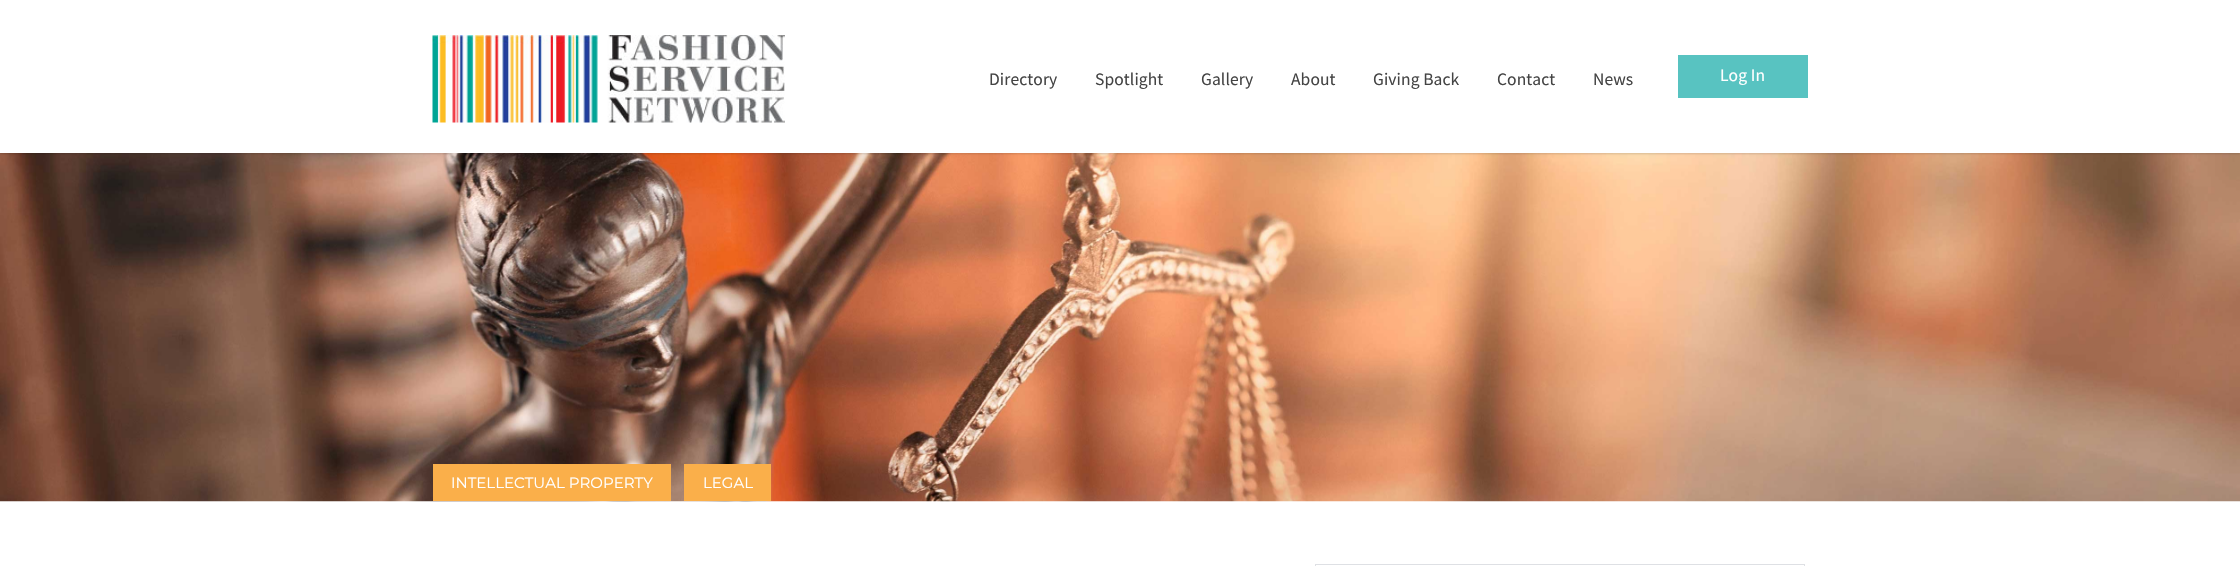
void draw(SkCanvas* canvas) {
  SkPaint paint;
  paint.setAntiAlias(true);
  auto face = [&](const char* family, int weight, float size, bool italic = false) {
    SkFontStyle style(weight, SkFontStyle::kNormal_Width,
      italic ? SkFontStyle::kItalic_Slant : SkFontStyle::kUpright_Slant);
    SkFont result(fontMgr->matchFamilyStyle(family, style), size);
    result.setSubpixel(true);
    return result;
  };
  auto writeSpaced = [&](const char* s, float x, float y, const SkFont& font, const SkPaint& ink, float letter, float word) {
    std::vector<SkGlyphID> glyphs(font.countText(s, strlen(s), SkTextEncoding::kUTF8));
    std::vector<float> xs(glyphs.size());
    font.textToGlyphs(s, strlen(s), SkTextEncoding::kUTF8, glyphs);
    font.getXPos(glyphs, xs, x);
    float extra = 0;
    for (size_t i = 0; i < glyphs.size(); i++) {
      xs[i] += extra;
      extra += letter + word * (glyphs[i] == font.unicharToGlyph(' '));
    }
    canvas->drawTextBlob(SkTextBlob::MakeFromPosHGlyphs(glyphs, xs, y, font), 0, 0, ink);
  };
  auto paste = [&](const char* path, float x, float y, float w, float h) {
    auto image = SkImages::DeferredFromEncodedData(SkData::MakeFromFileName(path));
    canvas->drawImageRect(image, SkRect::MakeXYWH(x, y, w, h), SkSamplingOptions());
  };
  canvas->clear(0xffffffff);
  paste("img/2.png", 0, 153, 2240, 349);
  paint.setColor(0x26000000);
  paint.setMaskFilter(SkMaskFilter::MakeBlur(kNormal_SkBlurStyle, 1));
  canvas->drawRect(SkRect::MakeXYWH(0, 1, 2240, 153), paint);
  paint.setMaskFilter(nullptr);
  paint.setColor(0xffffffff);
  canvas->drawRect(SkRect::MakeXYWH(0, 0, 2240, 153), paint);
  paste("img/1.png", 432, 35, 353, 88);
  {
    const struct { float x, y, w, h; SkColor color; } items[] = {
      {1678, 55, 130, 43, 0xff58c3c1},
      {433, 464, 238, 37, 0xfffaaf4a},
      {684, 464, 87, 37, 0xfffaaf4a},
    };
    for (auto [x, y, w, h, color] : items) {
      paint.setColor(color);
      canvas->drawRect(SkRect::MakeXYWH(x, y, w, h), paint);
    }
  }
  paint.setStroke(true);
  paint.setStrokeWidth(1);
  paint.setColor(0xffdee0e4);
  canvas->drawRect(SkRect::MakeXYWH(1315.5f, 564.5f, 489, 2), paint);
  auto f0 = face("Source Sans Pro", 400, 17.5f);
  paint.setStroke(false);
  paint.setColor(0xff444444);
  {
    const struct { const char* s; float x, y; } items[] = {
      {"Directory", 989, 85},
      {"Spotlight", 1095, 85},
      {"Gallery", 1201, 85},
      {"About", 1291, 85},
      {"Giving Back", 1373, 85},
      {"Contact", 1497, 85},
      {"News", 1593, 85},
    };
    for (auto [s, x, y] : items) {
      writeSpaced(s, x, y, f0, paint, 0.1f, 0);
    }
  }
  paint.setColor(0xffffffff);
  writeSpaced("Log In", 1720, 81, f0, paint, 0.1f, 0);
  auto f1 = face("Montserrat", 400, 15);
  canvas->drawString("INTELLECTUAL PROPERTY", 451, 488, f1, paint);
  canvas->drawString("LEGAL", 703, 488, f1, paint);
}
